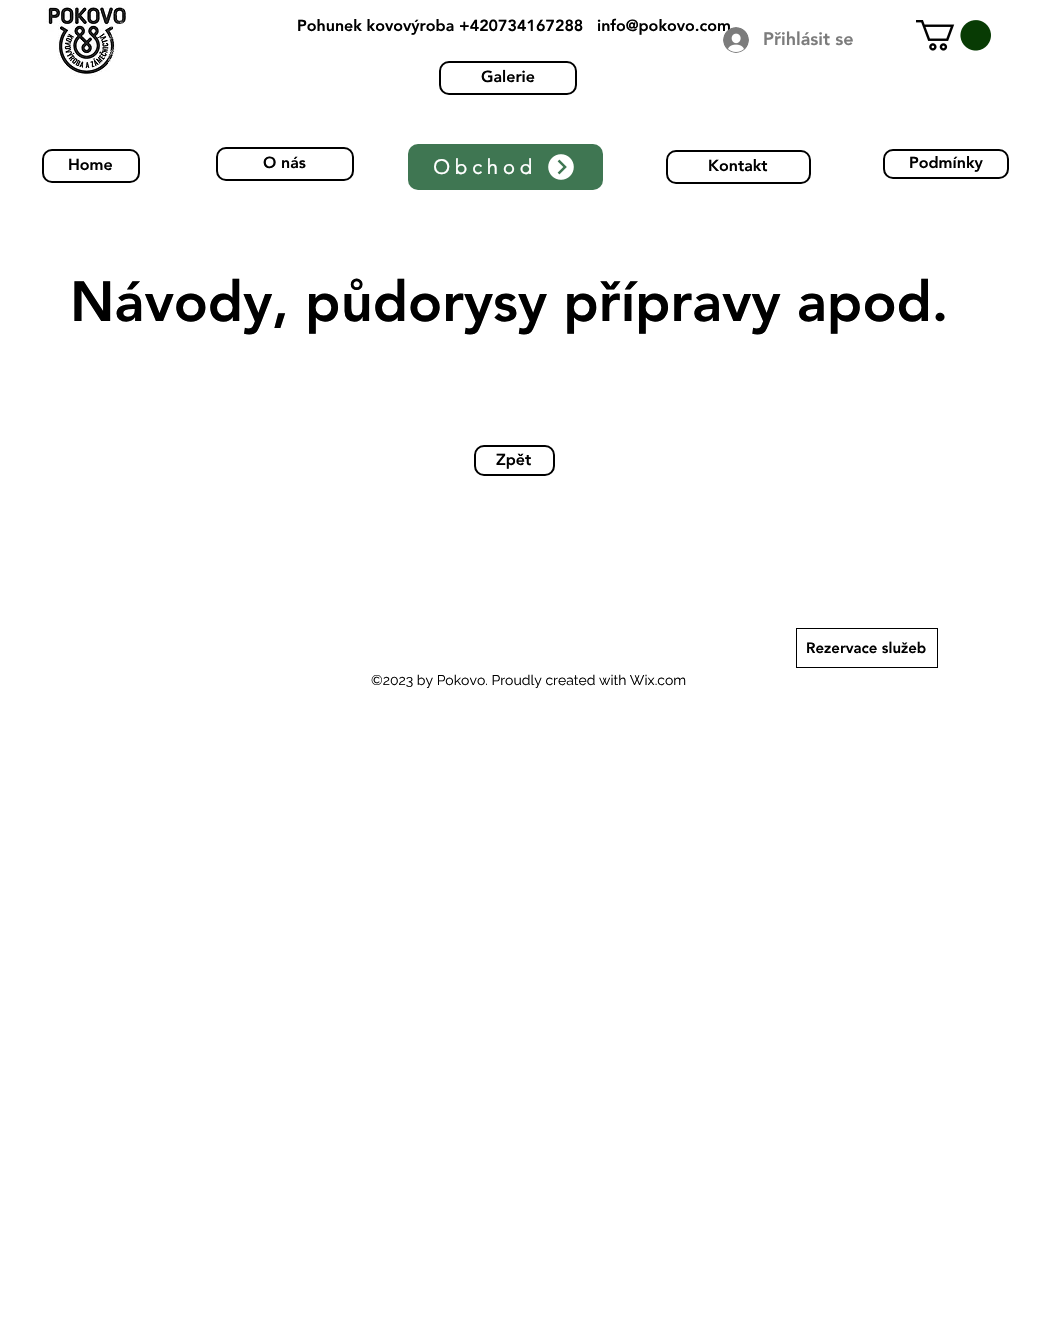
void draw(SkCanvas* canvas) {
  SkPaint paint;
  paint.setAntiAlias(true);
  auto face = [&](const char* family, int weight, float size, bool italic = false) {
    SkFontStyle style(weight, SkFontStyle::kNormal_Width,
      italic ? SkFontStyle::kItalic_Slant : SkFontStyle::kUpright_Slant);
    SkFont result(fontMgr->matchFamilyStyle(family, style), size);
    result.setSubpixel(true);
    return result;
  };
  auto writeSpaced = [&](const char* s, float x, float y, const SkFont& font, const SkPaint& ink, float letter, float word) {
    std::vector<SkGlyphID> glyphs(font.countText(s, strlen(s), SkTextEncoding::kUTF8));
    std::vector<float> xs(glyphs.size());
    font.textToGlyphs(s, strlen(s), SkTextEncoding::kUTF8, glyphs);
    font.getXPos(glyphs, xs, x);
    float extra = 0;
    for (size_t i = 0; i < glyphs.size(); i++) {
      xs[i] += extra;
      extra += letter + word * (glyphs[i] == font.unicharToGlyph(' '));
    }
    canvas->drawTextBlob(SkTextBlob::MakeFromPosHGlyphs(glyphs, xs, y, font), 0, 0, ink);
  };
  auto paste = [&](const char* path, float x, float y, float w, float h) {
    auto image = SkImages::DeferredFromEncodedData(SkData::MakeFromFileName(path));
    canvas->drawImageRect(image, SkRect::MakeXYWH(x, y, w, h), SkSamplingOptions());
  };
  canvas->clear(0xffffffff);
  paste("img/1.png", 46, 4, 80, 72);
  paste("img/3.png", 916, 20, 75, 31);
  paint.setStroke(true);
  paint.setStrokeWidth(2);
  paint.setColor(0xff000000);
  canvas->drawRoundRect(SkRect::MakeXYWH(440, 62, 136, 32), 9, 9, paint);
  canvas->drawRoundRect(SkRect::MakeXYWH(43, 150, 96, 32), 9, 9, paint);
  canvas->drawRoundRect(SkRect::MakeXYWH(217, 148, 136, 32), 9, 9, paint);
  paint.setStroke(false);
  paint.setColor(0xff3f7652);
  canvas->drawRoundRect(SkRect::MakeXYWH(408, 144, 195, 46), 10, 10, paint);
  paste("img/4.png", 548, 154, 26, 26);
  paint.setStroke(true);
  paint.setColor(0xff000000);
  canvas->drawRoundRect(SkRect::MakeXYWH(667, 151, 143, 32), 9, 9, paint);
  canvas->drawRoundRect(SkRect::MakeXYWH(884, 150, 124, 28), 9, 9, paint);
  canvas->drawRoundRect(SkRect::MakeXYWH(475, 446, 79, 29), 9, 9, paint);
  paint.setStrokeWidth(1);
  canvas->drawRect(SkRect::MakeXYWH(796.5f, 628.5f, 141, 39), paint);
  auto f0 = face("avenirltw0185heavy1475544", 900, 16);
  paint.setStroke(false);
  canvas->drawString("Pohunek kovovýroba +420734167288", 297, 31, f0, paint);
  canvas->drawString("info@pokovo.com", 597, 31, f0, paint);
  paste("img/2.png", 723, 27, 26, 26);
  auto f1 = face("avenirltw0185heavy1475544", 900, 18);
  paint.setColor(0xff7c7c7c);
  canvas->drawString("Přihlásit se", 763, 45, f1, paint);
  paint.setColor(0xff000000);
  {
    const struct { const char* s; float x, y; } items[] = {
      {"Galerie", 481, 82},
      {"Home", 68, 170},
      {"O nás", 263, 168},
    };
    for (auto [s, x, y] : items) {
      canvas->drawString(s, x, y, f0, paint);
    }
  }
  auto f2 = face("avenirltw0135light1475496", 700, 20);
  paint.setColor(0xffffffff);
  writeSpaced("Obchod", 433, 174, f2, paint, 5, 0);
  paint.setColor(0xff000000);
  canvas->drawString("Kontakt", 708, 171, f0, paint);
  canvas->drawString("Podmínky", 909, 168, f0, paint);
  auto f3 = face("avenirltw0185heavy1475544", 900, 56);
  canvas->drawString("Návody, půdorysy přípravy apod.", 70, 321, f3, paint);
  canvas->drawString("Zpět", 496, 465, f0, paint);
  auto f4 = face("avenirltw0185heavy1475544", 900, 15);
  canvas->drawString("Rezervace služeb", 806, 653, f4, paint);
  auto f5 = face("Raleway", 400, 14);
  canvas->drawString("©2023 by Pokovo. Proudly created with Wix.com", 371, 685, f5, paint);
}
